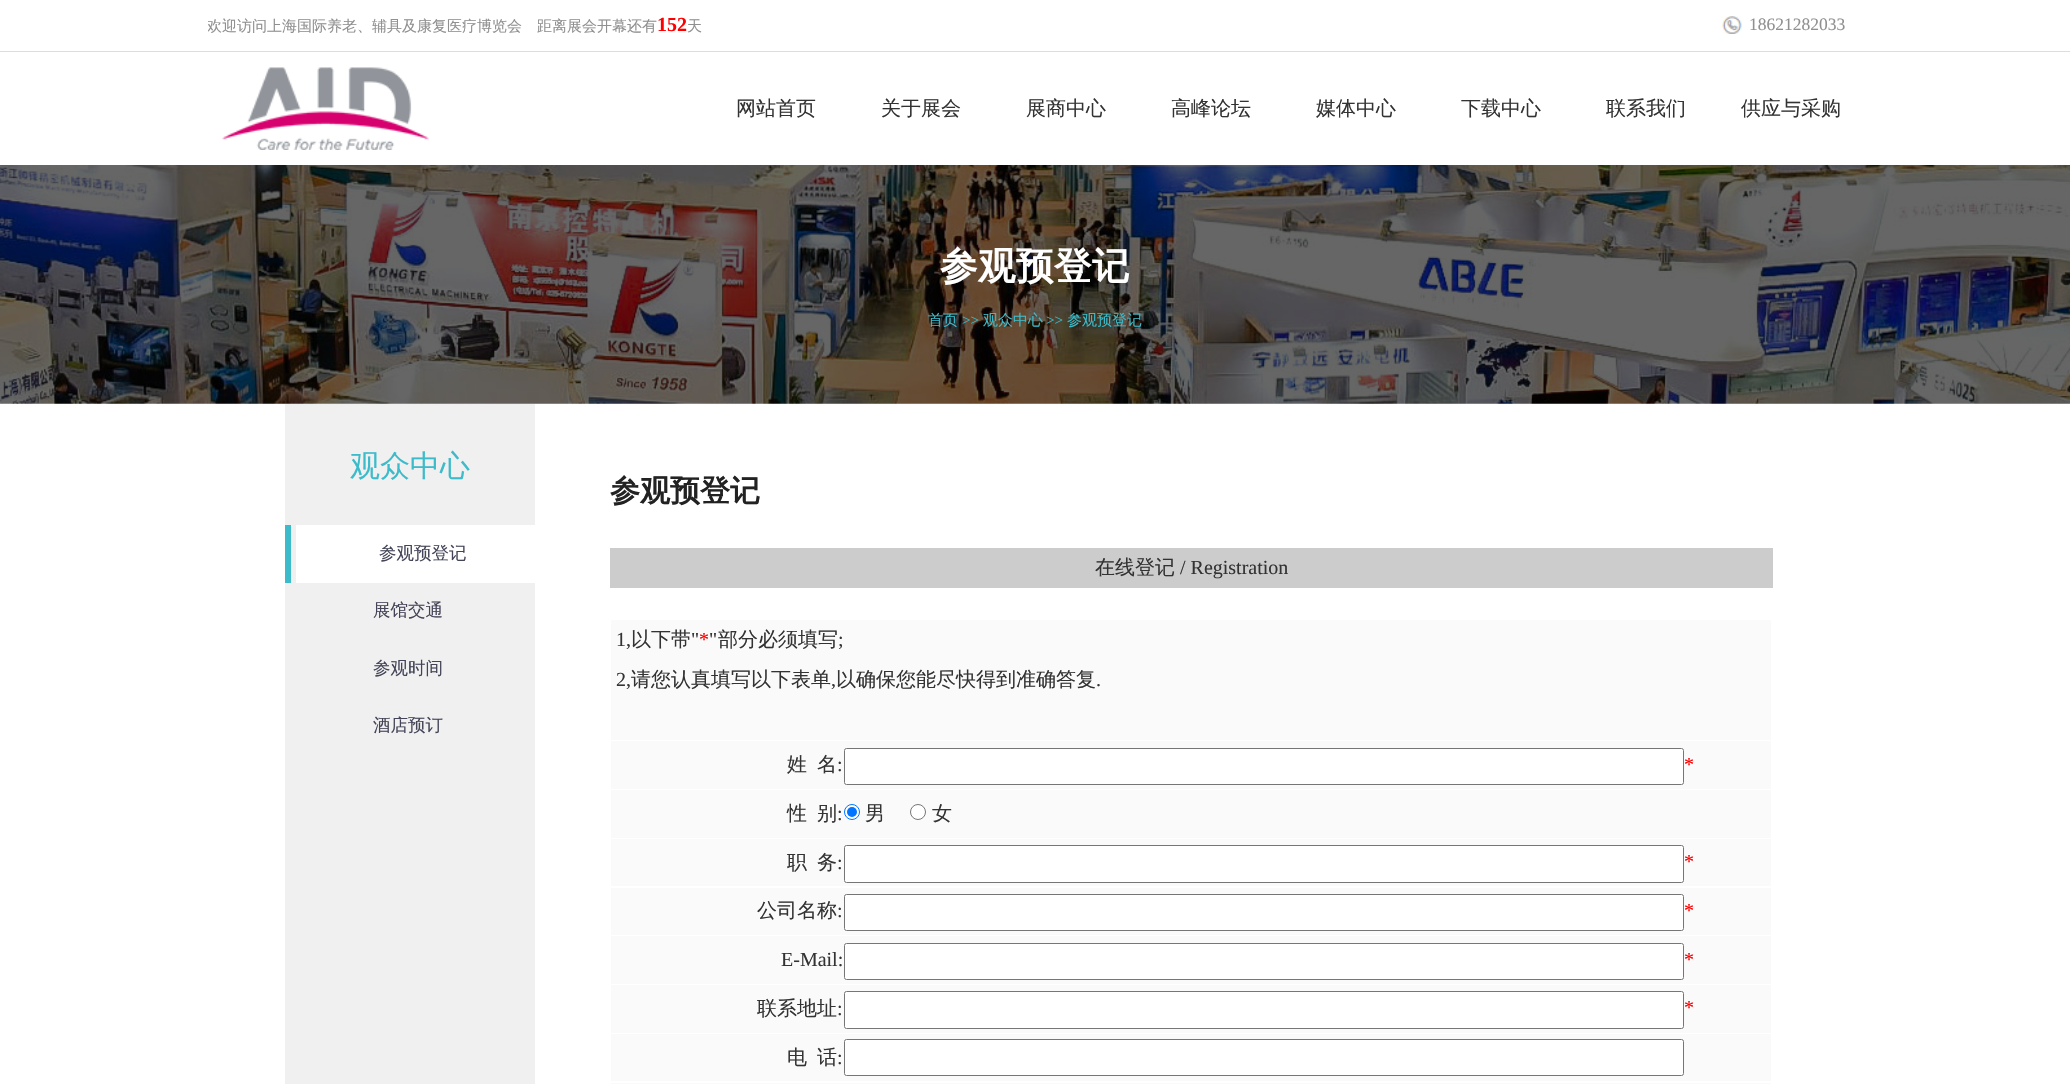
void draw(SkCanvas* canvas) {
  SkPaint paint;
  paint.setAntiAlias(true);
  auto face = [&](const char* family, int weight, float size, bool italic = false) {
    SkFontStyle style(weight, SkFontStyle::kNormal_Width,
      italic ? SkFontStyle::kItalic_Slant : SkFontStyle::kUpright_Slant);
    SkFont result(fontMgr->matchFamilyStyle(family, style), size);
    result.setSubpixel(true);
    return result;
  };
  auto writeSpaced = [&](const char* s, float x, float y, const SkFont& font, const SkPaint& ink, float letter, float word) {
    std::vector<SkGlyphID> glyphs(font.countText(s, strlen(s), SkTextEncoding::kUTF8));
    std::vector<float> xs(glyphs.size());
    font.textToGlyphs(s, strlen(s), SkTextEncoding::kUTF8, glyphs);
    font.getXPos(glyphs, xs, x);
    float extra = 0;
    for (size_t i = 0; i < glyphs.size(); i++) {
      xs[i] += extra;
      extra += letter + word * (glyphs[i] == font.unicharToGlyph(' '));
    }
    canvas->drawTextBlob(SkTextBlob::MakeFromPosHGlyphs(glyphs, xs, y, font), 0, 0, ink);
  };
  auto paste = [&](const char* path, float x, float y, float w, float h) {
    auto image = SkImages::DeferredFromEncodedData(SkData::MakeFromFileName(path));
    canvas->drawImageRect(image, SkRect::MakeXYWH(x, y, w, h), SkSamplingOptions());
  };
  canvas->clear(0xffffffff);
  paint.setColor(0xffdddddd);
  canvas->drawRect(SkRect::MakeXYWH(0, 51, 2070, 1), paint);
  paste("img/1.png", 1722, 16, 20, 18);
  paste("img/2.png", 222, 67, 207, 83);
  paste("img/3.png", 0, 165, 2070, 239);
  {
    const struct { float x, y, w, h; SkColor color; } items[] = {
      {285, 404, 250, 680, 0xfff0f0f0},
      {296, 525, 239, 58, 0xffffffff},
      {285, 525, 6, 58, 0xff3cbbca},
      {610, 548, 1163, 40, 0xffcccccc},
      {611, 620, 1160, 120, 0xfffafafa},
      {611, 741, 1160, 48, 0xfffafafa},
    };
    for (auto [x, y, w, h, color] : items) {
      paint.setColor(color);
      canvas->drawRect(SkRect::MakeXYWH(x, y, w, h), paint);
    }
  }
  paint.setColor(0xffffffff);
  canvas->drawRoundRect(SkRect::MakeXYWH(844.5f, 748.5f, 839, 36), 2, 2, paint);
  paint.setStroke(true);
  paint.setStrokeWidth(1);
  paint.setColor(0xff767676);
  canvas->drawRoundRect(SkRect::MakeXYWH(844.5f, 748.5f, 839, 36), 2, 2, paint);
  paint.setStroke(false);
  paint.setColor(0xfffafafa);
  canvas->drawRect(SkRect::MakeXYWH(611, 790, 1160, 48), paint);
  paint.setColor(0xffffffff);
  canvas->drawCircle(852, 812, 7.5f, paint);
  paint.setStroke(true);
  paint.setColor(0xff0075ff);
  canvas->drawCircle(852, 812, 7.5f, paint);
  paint.setStroke(false);
  canvas->drawCircle(852, 812, 5, paint);
  paint.setColor(0xffffffff);
  canvas->drawCircle(918, 812, 7.5f, paint);
  paint.setStroke(true);
  paint.setColor(0xff767676);
  canvas->drawCircle(918, 812, 7.5f, paint);
  paint.setStroke(false);
  paint.setColor(0xfffafafa);
  canvas->drawRect(SkRect::MakeXYWH(611, 839, 1160, 47), paint);
  paint.setColor(0xffffffff);
  canvas->drawRoundRect(SkRect::MakeXYWH(844.5f, 845.5f, 839, 37), 2, 2, paint);
  paint.setStroke(true);
  paint.setColor(0xff767676);
  canvas->drawRoundRect(SkRect::MakeXYWH(844.5f, 845.5f, 839, 37), 2, 2, paint);
  paint.setStroke(false);
  paint.setColor(0xfffafafa);
  canvas->drawRect(SkRect::MakeXYWH(611, 888, 1160, 47), paint);
  paint.setColor(0xffffffff);
  canvas->drawRoundRect(SkRect::MakeXYWH(844.5f, 894.5f, 839, 36), 2, 2, paint);
  paint.setStroke(true);
  paint.setColor(0xff767676);
  canvas->drawRoundRect(SkRect::MakeXYWH(844.5f, 894.5f, 839, 36), 2, 2, paint);
  paint.setStroke(false);
  paint.setColor(0xfffafafa);
  canvas->drawRect(SkRect::MakeXYWH(611, 936, 1160, 48), paint);
  paint.setColor(0xffffffff);
  canvas->drawRoundRect(SkRect::MakeXYWH(844.5f, 943.5f, 839, 36), 2, 2, paint);
  paint.setStroke(true);
  paint.setColor(0xff767676);
  canvas->drawRoundRect(SkRect::MakeXYWH(844.5f, 943.5f, 839, 36), 2, 2, paint);
  paint.setStroke(false);
  paint.setColor(0xfffafafa);
  canvas->drawRect(SkRect::MakeXYWH(611, 985, 1160, 48), paint);
  paint.setColor(0xffffffff);
  canvas->drawRoundRect(SkRect::MakeXYWH(844.5f, 991.5f, 839, 37), 2, 2, paint);
  paint.setStroke(true);
  paint.setColor(0xff767676);
  canvas->drawRoundRect(SkRect::MakeXYWH(844.5f, 991.5f, 839, 37), 2, 2, paint);
  paint.setStroke(false);
  paint.setColor(0xfffafafa);
  canvas->drawRect(SkRect::MakeXYWH(611, 1034, 1160, 47), paint);
  paint.setColor(0xffffffff);
  canvas->drawRoundRect(SkRect::MakeXYWH(844.5f, 1039.5f, 839, 36), 2, 2, paint);
  paint.setStroke(true);
  paint.setColor(0xff767676);
  canvas->drawRoundRect(SkRect::MakeXYWH(844.5f, 1039.5f, 839, 36), 2, 2, paint);
  paint.setStroke(false);
  paint.setColor(0xfffafafa);
  canvas->drawRect(SkRect::MakeXYWH(611, 1083, 1160, 1), paint);
  canvas->save();
  canvas->clipRect(SkRect::MakeXYWH(208, 0, 1655, 51));
  auto f0 = face("WenQuanYi Zen Hei", 500, 15);
  paint.setColor(0xff909090);
  canvas->drawString("欢迎访问上海国际养老、辅具及康复医疗博览会", 207, 31, f0, paint);
  canvas->restore();
  canvas->drawString("距离展会开幕还有", 537, 31, f0, paint);
  auto f1 = face("Liberation Serif", 700, 20);
  paint.setColor(0xffff0000);
  canvas->drawString("152", 657, 31, f1, paint);
  paint.setColor(0xff909090);
  canvas->drawString("天", 687, 31, f0, paint);
  auto f2 = face("Liberation Serif", 400, 17.5f);
  canvas->drawString("18621282033", 1749, 30, f2, paint);
  auto f3 = face("WenQuanYi Zen Hei", 500, 20);
  paint.setColor(0xff333333);
  {
    const struct { const char* s; float x, y; } items[] = {
      {"网站首页", 736, 115},
      {"关于展会", 881, 115},
      {"展商中心", 1026, 115},
      {"高峰论坛", 1171, 115},
      {"媒体中心", 1316, 115},
      {"下载中心", 1461, 115},
      {"联系我们", 1606, 115},
      {"供应与采购", 1741, 115},
    };
    for (auto [s, x, y] : items) {
      canvas->drawString(s, x, y, f3, paint);
    }
  }
  auto f4 = face("WenQuanYi Zen Hei", 700, 37.5f);
  paint.setColor(0xffffffff);
  writeSpaced("参观预登记", 940, 279, f4, paint, 0.5f, 0);
  paint.setColor(0xff3cbbca);
  canvas->drawString("首页", 928, 325, f0, paint);
  auto f5 = face("Liberation Serif", 400, 15);
  canvas->drawString(">>", 962, 325, f5, paint);
  canvas->drawString("观众中心", 983, 325, f0, paint);
  canvas->drawString(">>", 1046, 325, f5, paint);
  canvas->drawString("参观预登记", 1067, 325, f0, paint);
  auto f6 = face("WenQuanYi Zen Hei", 500, 30);
  canvas->drawString("观众中心", 350, 476, f6, paint);
  auto f7 = face("WenQuanYi Zen Hei", 500, 17.5f);
  paint.setColor(0xff434457);
  {
    const struct { const char* s; float x, y; } items[] = {
      {"参观预登记", 379, 559},
      {"展馆交通", 373, 616},
      {"参观时间", 373, 674},
      {"酒店预订", 373, 731},
    };
    for (auto [s, x, y] : items) {
      canvas->drawString(s, x, y, f7, paint);
    }
  }
  auto f8 = face("WenQuanYi Zen Hei", 700, 30);
  paint.setColor(0xff222222);
  canvas->drawString("参观预登记", 610, 501, f8, paint);
  paint.setColor(0xff333333);
  canvas->drawString("在线登记", 1095, 574, f3, paint);
  auto f9 = face("Liberation Serif", 400, 20);
  canvas->drawString("/ Registration", 1180, 574, f9, paint);
  canvas->drawString("1,", 616, 646, f9, paint);
  canvas->drawString("以下带", 631, 646, f3, paint);
  canvas->drawString("\"", 691, 646, f9, paint);
  paint.setColor(0xffff0000);
  canvas->drawString("*", 699, 646, f9, paint);
  paint.setColor(0xff333333);
  canvas->drawString("\"", 709, 646, f9, paint);
  canvas->drawString("部分必须填写", 718, 646, f3, paint);
  canvas->drawString(";", 838, 646, f9, paint);
  canvas->drawString("2,", 616, 686, f9, paint);
  canvas->drawString("请您认真填写以下表单", 631, 686, f3, paint);
  canvas->drawString(",", 831, 686, f9, paint);
  canvas->drawString("以确保您能尽快得到准确答复", 836, 686, f3, paint);
  canvas->drawString(".", 1096, 686, f9, paint);
  canvas->drawString("姓", 787, 771, f3, paint);
  canvas->drawString("名", 817, 771, f3, paint);
  canvas->drawString(":", 837, 771, f9, paint);
  paint.setColor(0xffff0000);
  canvas->drawString("*", 1684, 771, f9, paint);
  paint.setColor(0xff333333);
  canvas->drawString("性", 787, 820, f3, paint);
  canvas->drawString("别", 817, 820, f3, paint);
  canvas->drawString(":", 837, 820, f9, paint);
  {
    const struct { const char* s; float x, y; } items[] = {
      {"男", 865, 820},
      {"女", 932, 820},
      {"职", 787, 869},
      {"务", 817, 869},
    };
    for (auto [s, x, y] : items) {
      canvas->drawString(s, x, y, f3, paint);
    }
  }
  canvas->drawString(":", 837, 869, f9, paint);
  paint.setColor(0xffff0000);
  canvas->drawString("*", 1684, 868, f9, paint);
  paint.setColor(0xff333333);
  canvas->drawString("公司名称", 757, 917, f3, paint);
  canvas->drawString(":", 837, 917, f9, paint);
  paint.setColor(0xffff0000);
  canvas->drawString("*", 1684, 917, f9, paint);
  paint.setColor(0xff333333);
  canvas->drawString("E-Mail:", 781, 966, f9, paint);
  paint.setColor(0xffff0000);
  canvas->drawString("*", 1684, 966, f9, paint);
  paint.setColor(0xff333333);
  canvas->drawString("联系地址", 757, 1015, f3, paint);
  canvas->drawString(":", 837, 1015, f9, paint);
  paint.setColor(0xffff0000);
  canvas->drawString("*", 1684, 1014, f9, paint);
  paint.setColor(0xff333333);
  canvas->drawString("电", 787, 1064, f3, paint);
  canvas->drawString("话", 817, 1064, f3, paint);
  canvas->drawString(":", 837, 1064, f9, paint);
}
